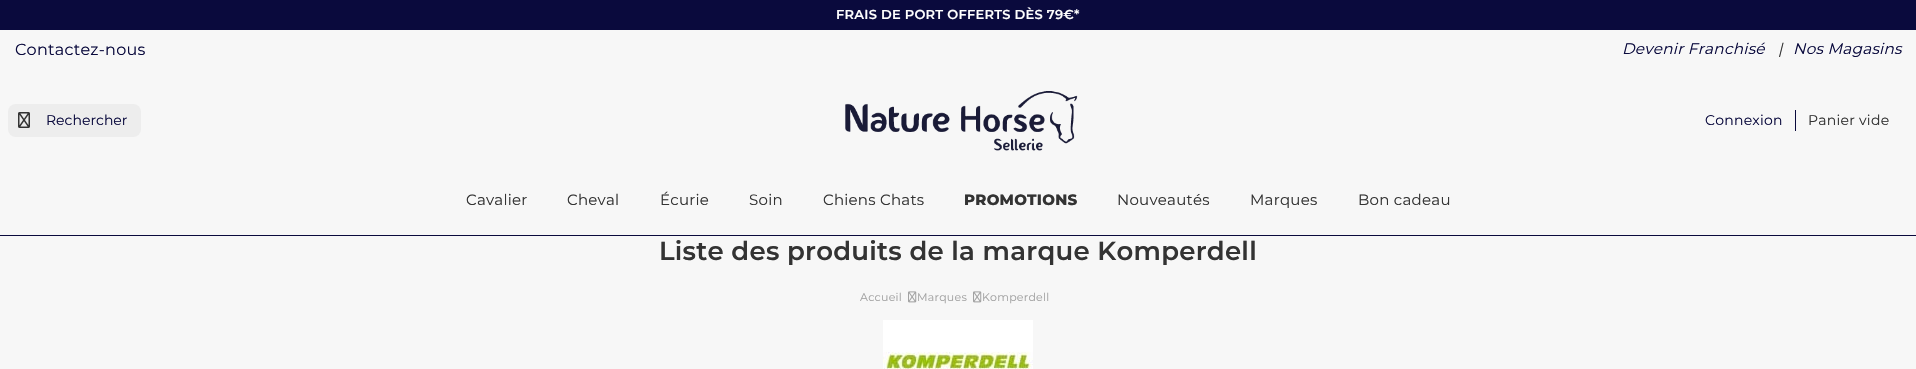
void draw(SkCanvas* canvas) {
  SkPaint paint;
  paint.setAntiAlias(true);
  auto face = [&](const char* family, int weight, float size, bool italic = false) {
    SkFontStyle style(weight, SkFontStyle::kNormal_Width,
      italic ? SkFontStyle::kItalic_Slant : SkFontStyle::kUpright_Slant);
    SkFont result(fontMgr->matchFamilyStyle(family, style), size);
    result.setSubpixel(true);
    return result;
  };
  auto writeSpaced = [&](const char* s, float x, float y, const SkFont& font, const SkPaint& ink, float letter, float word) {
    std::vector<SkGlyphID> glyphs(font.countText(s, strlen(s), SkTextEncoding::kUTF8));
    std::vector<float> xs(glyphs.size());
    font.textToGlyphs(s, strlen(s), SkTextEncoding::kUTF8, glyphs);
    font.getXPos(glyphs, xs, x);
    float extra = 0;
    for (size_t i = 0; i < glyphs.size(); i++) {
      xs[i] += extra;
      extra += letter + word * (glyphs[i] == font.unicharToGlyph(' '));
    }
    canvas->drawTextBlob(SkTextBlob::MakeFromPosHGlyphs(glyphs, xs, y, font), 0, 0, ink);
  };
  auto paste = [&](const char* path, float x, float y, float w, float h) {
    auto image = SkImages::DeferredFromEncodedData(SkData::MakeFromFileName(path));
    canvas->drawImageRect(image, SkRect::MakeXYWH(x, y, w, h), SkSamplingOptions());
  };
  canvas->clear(0xfff7f7f7);
  paint.setColor(0xff0a0a3d);
  canvas->drawRect(SkRect::MakeXYWH(0, 0, 1916, 30), paint);
  paint.setColor(0xffededed);
  canvas->drawRoundRect(SkRect::MakeXYWH(8, 104, 133, 33), 8, 8, paint);
  paste("img/1.png", 18, 112, 12, 16);
  paste("img/2.png", 845, 91, 233, 60);
  paint.setColor(0xff0a0a3d);
  canvas->drawRect(SkRect::MakeXYWH(1795, 110, 1, 21), paint);
  canvas->drawRect(SkRect::MakeXYWH(0, 235, 1916, 1), paint);
  paste("img/3.png", 908, 291, 9, 12);
  paste("img/3.png", 973, 291, 9, 12);
  paste("img/4.png", 883, 320, 150, 49);
  auto f0 = face("Montserrat", 600, 13);
  paint.setColor(0xffffffff);
  writeSpaced("FRAIS DE PORT OFFERTS DÈS 79€*", 836, 19, f0, paint, 0.25f, 0);
  auto f1 = face("Montserrat", 400, 16);
  paint.setColor(0xff0a0a3d);
  writeSpaced("Contactez-nous", 15, 55, f1, paint, 0.25f, 0);
  auto f2 = face("Montserrat", 400, 15.25f, true);
  writeSpaced("Devenir Franchisé", 1622, 54, f2, paint, 0.25f, 0);
  paint.setColor(0xff333333);
  writeSpaced("|", 1778, 54, f2, paint, 0.25f, 0);
  paint.setColor(0xff0a0a3d);
  writeSpaced("Nos Magasins", 1793, 54, f2, paint, 0.25f, 0);
  auto f3 = face("Montserrat", 400, 14);
  canvas->drawString("Rechercher", 46, 125, f3, paint);
  writeSpaced("Connexion", 1705, 125, f3, paint, 0.25f, 0);
  paint.setColor(0xff333333);
  writeSpaced("Panier vide", 1808, 125, f3, paint, 0.25f, 0);
  auto f4 = face("Montserrat", 400, 15);
  {
    const struct { const char* s; float x, y; } items[] = {
      {"Cavalier", 466, 205},
      {"Cheval", 567, 205},
      {"Écurie", 660, 205},
      {"Soin", 749, 205},
      {"Chiens Chats", 823, 205},
    };
    for (auto [s, x, y] : items) {
      writeSpaced(s, x, y, f4, paint, 0.25f, 0);
    }
  }
  auto f5 = face("Montserrat", 800, 15);
  writeSpaced("PROMOTIONS", 964, 205, f5, paint, 0.25f, 0);
  {
    const struct { const char* s; float x, y; } items[] = {
      {"Nouveautés", 1117, 205},
      {"Marques", 1250, 205},
      {"Bon cadeau", 1358, 205},
    };
    for (auto [s, x, y] : items) {
      writeSpaced(s, x, y, f4, paint, 0.25f, 0);
    }
  }
  auto f6 = face("Montserrat", 600, 26);
  writeSpaced("Liste des produits de la marque Komperdell", 659, 260, f6, paint, 0.25f, 0);
  auto f7 = face("Montserrat", 400, 11);
  paint.setColor(0xffa2a2a2);
  {
    const struct { const char* s; float x, y; } items[] = {
      {"Accueil", 860, 301},
      {"Marques", 917, 301},
      {"Komperdell", 982, 301},
    };
    for (auto [s, x, y] : items) {
      writeSpaced(s, x, y, f7, paint, 0.25f, 0);
    }
  }
}
